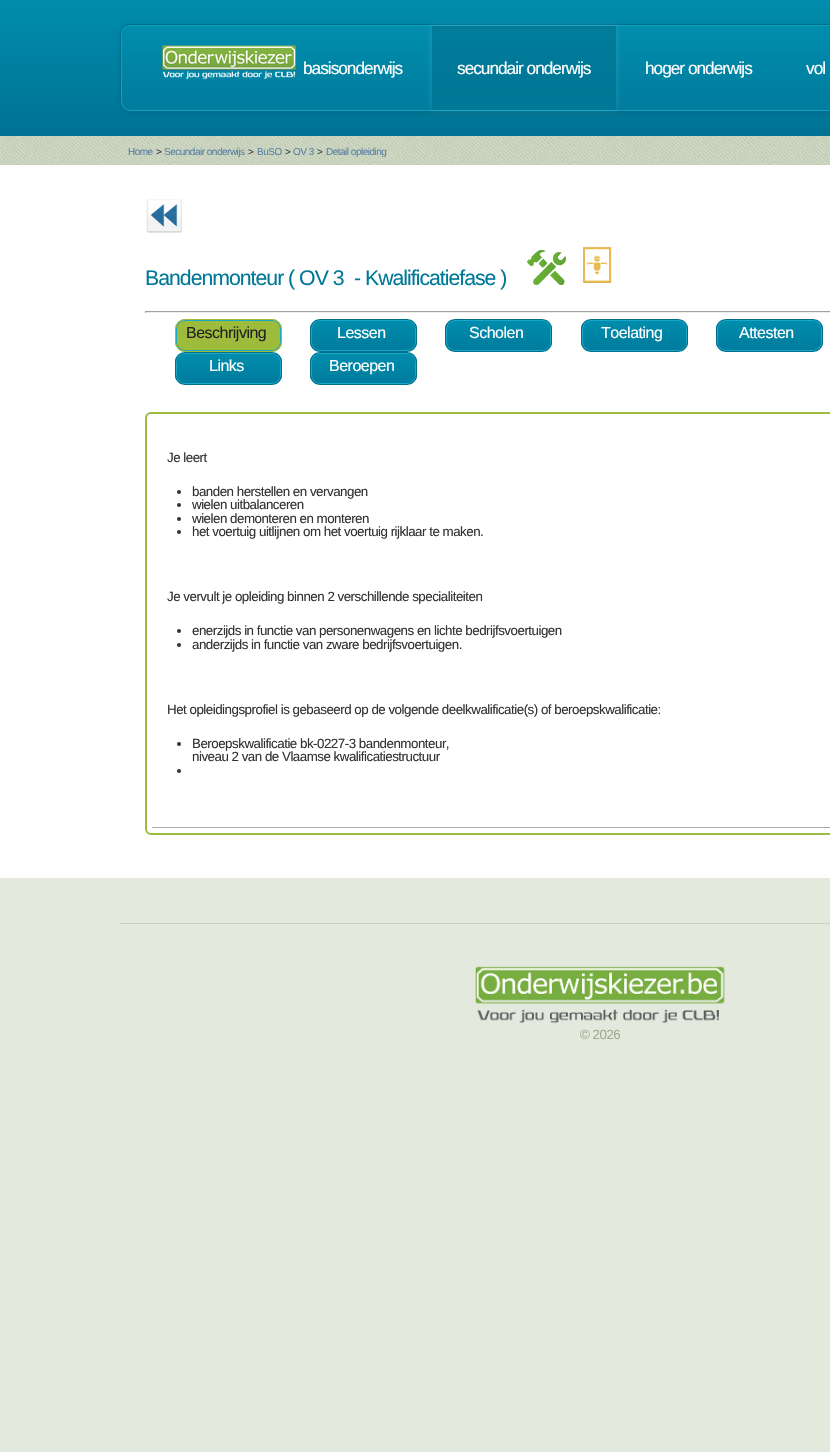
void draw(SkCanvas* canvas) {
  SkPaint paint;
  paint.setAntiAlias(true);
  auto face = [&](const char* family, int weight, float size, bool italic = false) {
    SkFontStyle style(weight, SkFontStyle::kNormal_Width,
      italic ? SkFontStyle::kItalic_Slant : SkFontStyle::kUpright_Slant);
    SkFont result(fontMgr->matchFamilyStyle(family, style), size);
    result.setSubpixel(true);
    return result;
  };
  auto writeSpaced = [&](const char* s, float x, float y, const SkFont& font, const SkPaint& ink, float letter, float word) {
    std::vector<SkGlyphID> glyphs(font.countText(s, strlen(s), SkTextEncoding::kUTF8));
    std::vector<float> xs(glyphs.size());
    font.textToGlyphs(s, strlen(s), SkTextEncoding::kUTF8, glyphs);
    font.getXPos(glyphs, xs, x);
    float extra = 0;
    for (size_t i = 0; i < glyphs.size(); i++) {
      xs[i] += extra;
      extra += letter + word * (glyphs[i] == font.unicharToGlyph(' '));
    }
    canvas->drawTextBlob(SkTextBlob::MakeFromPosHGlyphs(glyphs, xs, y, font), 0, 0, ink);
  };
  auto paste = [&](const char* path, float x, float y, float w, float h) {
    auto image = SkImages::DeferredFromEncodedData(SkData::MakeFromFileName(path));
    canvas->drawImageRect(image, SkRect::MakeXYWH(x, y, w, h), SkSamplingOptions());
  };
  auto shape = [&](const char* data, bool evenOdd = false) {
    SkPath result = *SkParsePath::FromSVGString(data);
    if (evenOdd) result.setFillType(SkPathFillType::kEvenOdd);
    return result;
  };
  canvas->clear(0xffe3e9dc);
  {
    const SkColor colors[] = {0xff008dab, 0xff007294};
    const float stops[] = {0, 1};
    const SkPoint ends[] = {{0, 0}, {0, 136}};
    paint.setShader(SkGradientShader::MakeLinear(ends, colors, stops, 2, SkTileMode::kClamp));
    paint.setAlpha(255);
  }
  canvas->drawRect(SkRect::MakeXYWH(0, 0, 830, 136), paint);
  paint.setShader(nullptr);
  paint.setColor(0x1a000000);
  paint.setMaskFilter(SkMaskFilter::MakeBlur(kNormal_SkBlurStyle, 2));
  canvas->drawRoundRect(SkRect::MakeXYWH(120, 25, 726, 88), 10, 10, paint);
  paint.setMaskFilter(nullptr);
  canvas->save();
  canvas->clipPath(shape("M130 24H1070C1075.5 24 1080 28.5 1080 34V102C1080 107.5 1075.5 112 1070 112H130C124.5 112 120 107.5 120 102V34C120 28.5 124.5 24 130 24Z"), true);
  {
    const SkColor colors[] = {0xff008ead, 0xff007b9d};
    const float stops[] = {0, 1};
    const SkPoint ends[] = {{121, 25}, {121, 111}};
    paint.setShader(SkGradientShader::MakeLinear(ends, colors, stops, 2, SkTileMode::kClamp));
    paint.setAlpha(255);
  }
  canvas->drawRect(SkRect::MakeXYWH(120, 25, 710, 86), paint);
  canvas->restore();
  paint.setStroke(true);
  paint.setStrokeWidth(1);
  paint.setShader(nullptr);
  paint.setColor(0xff12a0bf);
  canvas->drawRoundRect(SkRect::MakeXYWH(121.5f, 25.5f, 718, 85), 8.5f, 8.5f, paint);
  paint.setColor(0xff006e8b);
  canvas->drawRoundRect(SkRect::MakeXYWH(120.5f, 24.5f, 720, 87), 9.5f, 9.5f, paint);
  paste("img/1.png", 162, 45, 135, 34);
  paint.setStroke(false);
  paint.setColor(0x1affffff);
  paint.setMaskFilter(SkMaskFilter::MakeBlur(kNormal_SkBlurStyle, 2.5f));
  canvas->drawRect(SkRect::MakeXYWH(431, 25, 186, 86), paint);
  paint.setMaskFilter(nullptr);
  {
    const SkColor colors[] = {0xff007b99, 0xff007897};
    const float stops[] = {0, 1};
    const SkPoint ends[] = {{432, 26}, {432, 110}};
    paint.setShader(SkGradientShader::MakeLinear(ends, colors, stops, 2, SkTileMode::kClamp));
    paint.setAlpha(255);
  }
  canvas->drawRect(SkRect::MakeXYWH(432, 26, 184, 84), paint);
  paste("img/2.png", 0, 136, 830, 29);
  paint.setShader(nullptr);
  paint.setColor(0xffffffff);
  canvas->drawRect(SkRect::MakeXYWH(0, 165, 830, 713), paint);
  paste("img/3.png", 146, 199, 36, 34);
  paste("img/4.png", 527, 250, 39, 35);
  paste("img/5.png", 583, 246, 29, 37);
  {
    const struct { float x, y, w, h; SkColor color; } items[] = {
      {145, 311, 685, 1, 0xff9f9f9f},
      {145, 312, 685, 1, 0xffeeeeee},
      {145, 311, 1, 2, 0xff9f9f9f},
    };
    for (auto [x, y, w, h, color] : items) {
      paint.setColor(color);
      canvas->drawRect(SkRect::MakeXYWH(x, y, w, h), paint);
    }
  }
  paint.setColor(0xff9ebc3b);
  canvas->drawRoundRect(SkRect::MakeXYWH(175, 319, 107, 33), 10, 10, paint);
  paint.setStroke(true);
  paint.setColor(0xff18a8c8);
  canvas->drawRoundRect(SkRect::MakeXYWH(176.5f, 320.5f, 104, 30), 8.5f, 8.5f, paint);
  paint.setColor(0xff9ebc3b);
  canvas->drawRoundRect(SkRect::MakeXYWH(175.5f, 319.5f, 106, 32), 9.5f, 9.5f, paint);
  canvas->save();
  canvas->clipPath(shape("M320 319H407C412.5 319 417 323.5 417 329V342C417 347.5 412.5 352 407 352H320C314.5 352 310 347.5 310 342V329C310 323.5 314.5 319 320 319Z"), true);
  paint.setStroke(false);
  {
    const SkColor colors[] = {0xff008dad, 0xff007b9d};
    const float stops[] = {0, 1};
    const SkPoint ends[] = {{311, 320}, {311, 351}};
    paint.setShader(SkGradientShader::MakeLinear(ends, colors, stops, 2, SkTileMode::kClamp));
    paint.setAlpha(255);
  }
  canvas->drawRect(SkRect::MakeXYWH(310, 320, 107, 31), paint);
  canvas->restore();
  paint.setStroke(true);
  paint.setShader(nullptr);
  paint.setColor(0xff18a8c8);
  canvas->drawRoundRect(SkRect::MakeXYWH(311.5f, 320.5f, 104, 30), 8.5f, 8.5f, paint);
  paint.setColor(0xff006e8b);
  canvas->drawRoundRect(SkRect::MakeXYWH(310.5f, 319.5f, 106, 32), 9.5f, 9.5f, paint);
  canvas->save();
  canvas->clipPath(shape("M455 319H542C547.5 319 552 323.5 552 329V342C552 347.5 547.5 352 542 352H455C449.5 352 445 347.5 445 342V329C445 323.5 449.5 319 455 319Z"), true);
  paint.setStroke(false);
  {
    const SkColor colors[] = {0xff008dad, 0xff007b9d};
    const float stops[] = {0, 1};
    const SkPoint ends[] = {{446, 320}, {446, 351}};
    paint.setShader(SkGradientShader::MakeLinear(ends, colors, stops, 2, SkTileMode::kClamp));
    paint.setAlpha(255);
  }
  canvas->drawRect(SkRect::MakeXYWH(445, 320, 107, 31), paint);
  canvas->restore();
  paint.setStroke(true);
  paint.setShader(nullptr);
  paint.setColor(0xff18a8c8);
  canvas->drawRoundRect(SkRect::MakeXYWH(446.5f, 320.5f, 104, 30), 8.5f, 8.5f, paint);
  paint.setColor(0xff006e8b);
  canvas->drawRoundRect(SkRect::MakeXYWH(445.5f, 319.5f, 106, 32), 9.5f, 9.5f, paint);
  canvas->save();
  canvas->clipPath(shape("M591 319H678C683.5 319 688 323.5 688 329V342C688 347.5 683.5 352 678 352H591C585.5 352 581 347.5 581 342V329C581 323.5 585.5 319 591 319Z"), true);
  paint.setStroke(false);
  {
    const SkColor colors[] = {0xff008dad, 0xff007b9d};
    const float stops[] = {0, 1};
    const SkPoint ends[] = {{582, 320}, {582, 351}};
    paint.setShader(SkGradientShader::MakeLinear(ends, colors, stops, 2, SkTileMode::kClamp));
    paint.setAlpha(255);
  }
  canvas->drawRect(SkRect::MakeXYWH(581, 320, 107, 31), paint);
  canvas->restore();
  paint.setStroke(true);
  paint.setShader(nullptr);
  paint.setColor(0xff18a8c8);
  canvas->drawRoundRect(SkRect::MakeXYWH(582.5f, 320.5f, 104, 30), 8.5f, 8.5f, paint);
  paint.setColor(0xff006e8b);
  canvas->drawRoundRect(SkRect::MakeXYWH(581.5f, 319.5f, 106, 32), 9.5f, 9.5f, paint);
  canvas->save();
  canvas->clipPath(shape("M726 319H813C818.5 319 823 323.5 823 329V342C823 347.5 818.5 352 813 352H726C720.5 352 716 347.5 716 342V329C716 323.5 720.5 319 726 319Z"), true);
  paint.setStroke(false);
  {
    const SkColor colors[] = {0xff008dad, 0xff007b9d};
    const float stops[] = {0, 1};
    const SkPoint ends[] = {{717, 320}, {717, 351}};
    paint.setShader(SkGradientShader::MakeLinear(ends, colors, stops, 2, SkTileMode::kClamp));
    paint.setAlpha(255);
  }
  canvas->drawRect(SkRect::MakeXYWH(716, 320, 107, 31), paint);
  canvas->restore();
  paint.setStroke(true);
  paint.setShader(nullptr);
  paint.setColor(0xff18a8c8);
  canvas->drawRoundRect(SkRect::MakeXYWH(717.5f, 320.5f, 104, 30), 8.5f, 8.5f, paint);
  paint.setColor(0xff006e8b);
  canvas->drawRoundRect(SkRect::MakeXYWH(716.5f, 319.5f, 106, 32), 9.5f, 9.5f, paint);
  canvas->save();
  canvas->clipPath(shape("M185 352H272C277.5 352 282 356.5 282 362V375C282 380.5 277.5 385 272 385H185C179.5 385 175 380.5 175 375V362C175 356.5 179.5 352 185 352Z"), true);
  paint.setStroke(false);
  {
    const SkColor colors[] = {0xff008dad, 0xff007b9d};
    const float stops[] = {0, 1};
    const SkPoint ends[] = {{176, 353}, {176, 384}};
    paint.setShader(SkGradientShader::MakeLinear(ends, colors, stops, 2, SkTileMode::kClamp));
    paint.setAlpha(255);
  }
  canvas->drawRect(SkRect::MakeXYWH(175, 353, 107, 31), paint);
  canvas->restore();
  paint.setStroke(true);
  paint.setShader(nullptr);
  paint.setColor(0xff18a8c8);
  canvas->drawRoundRect(SkRect::MakeXYWH(176.5f, 353.5f, 104, 30), 8.5f, 8.5f, paint);
  paint.setColor(0xff006e8b);
  canvas->drawRoundRect(SkRect::MakeXYWH(175.5f, 352.5f, 106, 32), 9.5f, 9.5f, paint);
  canvas->save();
  canvas->clipPath(shape("M320 352H407C412.5 352 417 356.5 417 362V375C417 380.5 412.5 385 407 385H320C314.5 385 310 380.5 310 375V362C310 356.5 314.5 352 320 352Z"), true);
  paint.setStroke(false);
  {
    const SkColor colors[] = {0xff008dad, 0xff007b9d};
    const float stops[] = {0, 1};
    const SkPoint ends[] = {{311, 353}, {311, 384}};
    paint.setShader(SkGradientShader::MakeLinear(ends, colors, stops, 2, SkTileMode::kClamp));
    paint.setAlpha(255);
  }
  canvas->drawRect(SkRect::MakeXYWH(310, 353, 107, 31), paint);
  canvas->restore();
  paint.setStroke(true);
  paint.setShader(nullptr);
  paint.setColor(0xff18a8c8);
  canvas->drawRoundRect(SkRect::MakeXYWH(311.5f, 353.5f, 104, 30), 8.5f, 8.5f, paint);
  paint.setColor(0xff006e8b);
  canvas->drawRoundRect(SkRect::MakeXYWH(310.5f, 352.5f, 106, 32), 9.5f, 9.5f, paint);
  paint.setStrokeWidth(2);
  paint.setColor(0xff9ebc3b);
  canvas->drawRoundRect(SkRect::MakeXYWH(146, 413, 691, 421), 5, 5, paint);
  paint.setStroke(false);
  paint.setColor(0xffa9a9a9);
  canvas->drawRect(SkRect::MakeXYWH(152, 827, 678, 1), paint);
  paint.setColor(0xff333333);
  canvas->drawCircle(179, 492, 2, paint);
  canvas->drawCircle(179, 505, 2, paint);
  canvas->drawCircle(179, 519, 2, paint);
  canvas->drawCircle(179, 532, 2, paint);
  canvas->drawCircle(179, 631, 2, paint);
  canvas->drawCircle(179, 645, 2, paint);
  canvas->drawCircle(179, 744, 2, paint);
  canvas->drawCircle(179, 771, 2, paint);
  paint.setColor(0xffced0b7);
  canvas->drawRect(SkRect::MakeXYWH(120, 923, 710, 1), paint);
  paste("img/6.png", 475, 966, 250, 58);
  auto f0 = face("Liberation Sans", 400, 17.25f);
  paint.setColor(0xffffffff);
  {
    const struct { const char* s; float x, y; } items[] = {
      {"basisonderwijs", 303, 74},
      {"secundair onderwijs", 457, 74},
      {"hoger onderwijs", 645, 74},
      {"vol", 806, 74},
    };
    for (auto [s, x, y] : items) {
      writeSpaced(s, x, y, f0, paint, -1, 0);
    }
  }
  auto f1 = face("Liberation Sans", 400, 10);
  paint.setColor(0xff5d80a4);
  writeSpaced("Home", 128, 155, f1, paint, -0.5f, 0);
  paint.setColor(0xff333333);
  writeSpaced(">", 156, 155, f1, paint, -0.5f, 0);
  paint.setColor(0xff5d80a4);
  writeSpaced("Secundair onderwijs", 164, 155, f1, paint, -0.5f, 0);
  paint.setColor(0xff333333);
  writeSpaced(">", 248, 155, f1, paint, -0.5f, 0);
  paint.setColor(0xff5d80a4);
  writeSpaced("BuSO", 257, 155, f1, paint, -0.5f, 0);
  paint.setColor(0xff333333);
  writeSpaced(">", 285, 155, f1, paint, -0.5f, 0);
  paint.setColor(0xff5d80a4);
  writeSpaced("OV 3", 293, 155, f1, paint, -0.5f, 0);
  paint.setColor(0xff333333);
  writeSpaced(">", 317, 155, f1, paint, -0.5f, 0);
  paint.setColor(0xff5d80a4);
  writeSpaced("Detail opleiding", 326, 155, f1, paint, -0.5f, 0);
  auto f2 = face("Liberation Sans", 400, 21.25f);
  paint.setColor(0xff007897);
  writeSpaced("Bandenmonteur ( OV 3", 145, 285, f2, paint, -1, 0);
  writeSpaced("- Kwalificatiefase )", 354, 285, f2, paint, -1, 0);
  auto f3 = face("Liberation Sans", 400, 16);
  paint.setColor(0xff222222);
  writeSpaced("Beschrijving", 186, 338, f3, paint, -0.5f, 0);
  paint.setColor(0xffffffff);
  {
    const struct { const char* s; float x, y; } items[] = {
      {"Lessen", 337, 338},
      {"Scholen", 469, 338},
      {"Toelating", 601, 338},
      {"Attesten", 739, 338},
      {"Links", 209, 371},
      {"Beroepen", 329, 371},
    };
    for (auto [s, x, y] : items) {
      writeSpaced(s, x, y, f3, paint, -0.5f, 0);
    }
  }
  auto f4 = face("Liberation Sans", 400, 13.35f);
  paint.setColor(0xff333333);
  {
    const struct { const char* s; float x, y; } items[] = {
      {"Je leert", 167, 462},
      {"banden herstellen en vervangen", 192, 496},
      {"wielen uitbalanceren", 192, 509},
      {"wielen demonteren en monteren", 192, 523},
      {"het voertuig uitlijnen om het voertuig rijklaar te maken.", 192, 536},
      {"Je vervult je opleiding binnen 2 verschillende specialiteiten", 167, 601},
      {"enerzijds in functie van personenwagens en lichte bedrijfsvoertuigen", 192, 635},
      {"anderzijds in functie van zware bedrijfsvoertuigen.", 192, 649},
      {"Het opleidingsprofiel is gebaseerd op de volgende deelkwalificatie(s) of beroepskwalificatie:", 167, 714},
      {"Beroepskwalificatie bk-0227-3 bandenmonteur,", 192, 748},
      {"niveau 2 van de Vlaamse kwalificatiestructuur", 192, 761},
    };
    for (auto [s, x, y] : items) {
      writeSpaced(s, x, y, f4, paint, -0.5f, 0);
    }
  }
  paint.setColor(0xffa6a88f);
  writeSpaced("© 2026", 580, 1039, f4, paint, -0.5f, 0);
}
